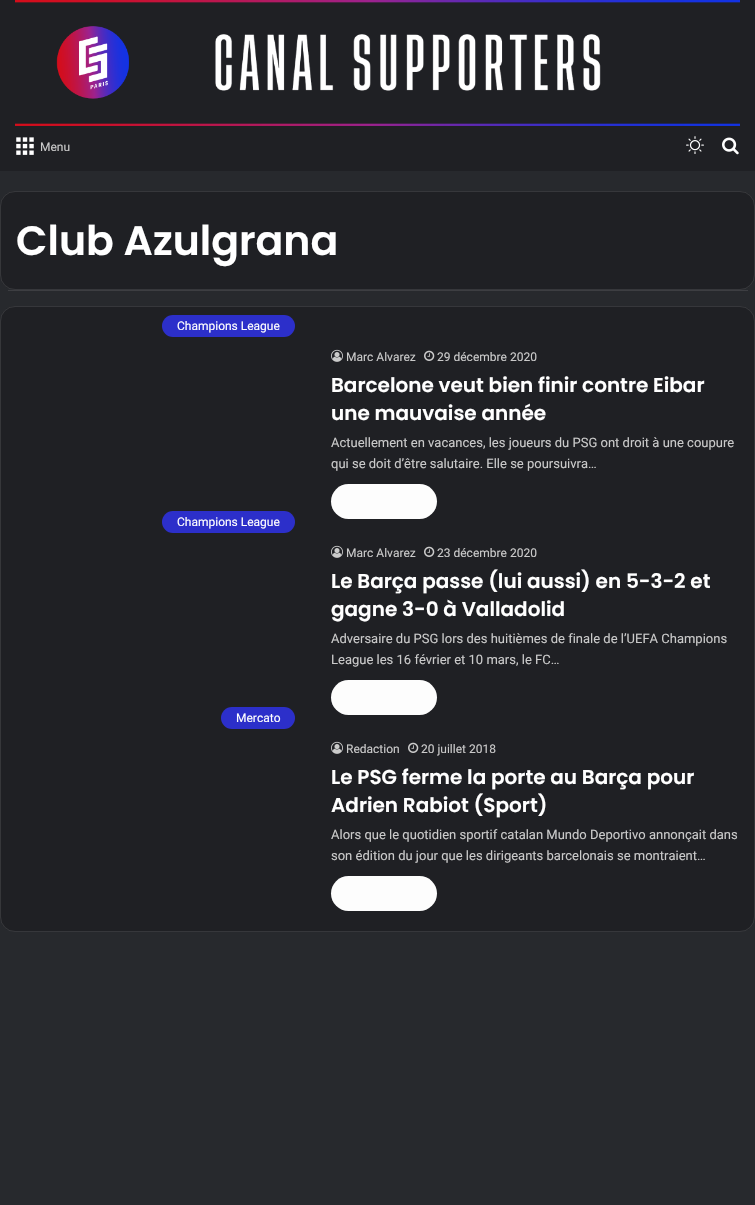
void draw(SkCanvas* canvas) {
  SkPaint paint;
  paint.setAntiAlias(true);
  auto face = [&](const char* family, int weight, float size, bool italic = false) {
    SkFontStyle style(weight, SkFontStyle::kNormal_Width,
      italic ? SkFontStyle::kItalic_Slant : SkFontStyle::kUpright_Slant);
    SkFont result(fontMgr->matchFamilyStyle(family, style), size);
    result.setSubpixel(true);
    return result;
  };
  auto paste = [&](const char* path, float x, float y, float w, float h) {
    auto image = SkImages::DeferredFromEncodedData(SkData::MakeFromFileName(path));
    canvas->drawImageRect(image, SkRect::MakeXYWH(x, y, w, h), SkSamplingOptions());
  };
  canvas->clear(0xff27292d);
  paint.setColor(0xff1f2024);
  canvas->drawRect(SkRect::MakeXYWH(0, 0, 755, 171), paint);
  paste("img/1.png", 15, 0, 725, 126);
  paste("img/2.png", 16, 137, 18, 18);
  paste("img/3.png", 686, 136, 18, 18);
  paste("img/4.png", 722, 137, 17, 18);
  canvas->drawRoundRect(SkRect::MakeXYWH(0, 191, 755, 99), 15, 15, paint);
  paint.setStroke(true);
  paint.setStrokeWidth(1);
  paint.setColor(0x1affffff);
  canvas->drawRoundRect(SkRect::MakeXYWH(0.5f, 191.5f, 754, 98), 14.5f, 14.5f, paint);
  paint.setStroke(false);
  paint.setColor(0xff3d3e42);
  canvas->drawRect(SkRect::MakeXYWH(8, 290, 740, 1), paint);
  paint.setColor(0xff1f2024);
  canvas->drawRoundRect(SkRect::MakeXYWH(0, 306, 755, 626), 15, 15, paint);
  paint.setStroke(true);
  paint.setColor(0x1afdfdfd);
  canvas->drawRoundRect(SkRect::MakeXYWH(0.5f, 306.5f, 754, 625), 14.5f, 14.5f, paint);
  paint.setStroke(false);
  paint.setColor(0xff2c2fca);
  canvas->drawRoundRect(SkRect::MakeXYWH(162, 315, 133, 22), 11, 11, paint);
  paste("img/5.png", 331, 349, 12, 13);
  paste("img/6.png", 424, 350, 11, 11);
  paint.setColor(0xfffdfdfd);
  canvas->drawRoundRect(SkRect::MakeXYWH(331, 484, 106, 35), 17.5f, 17.5f, paint);
  paint.setColor(0xff2c2fca);
  canvas->drawRoundRect(SkRect::MakeXYWH(162, 511, 133, 22), 11, 11, paint);
  paste("img/5.png", 331, 545, 12, 13);
  paste("img/6.png", 424, 546, 11, 11);
  paint.setColor(0xfffdfdfd);
  canvas->drawRoundRect(SkRect::MakeXYWH(331, 680, 106, 35), 17.5f, 17.5f, paint);
  paint.setColor(0xff2c2fca);
  canvas->drawRoundRect(SkRect::MakeXYWH(221, 707, 74, 22), 11, 11, paint);
  paste("img/5.png", 331, 741, 12, 13);
  paste("img/6.png", 408, 742, 11, 11);
  paint.setColor(0xfffdfdfd);
  canvas->drawRoundRect(SkRect::MakeXYWH(331, 876, 106, 35), 17.5f, 17.5f, paint);
  auto f0 = face("Roboto", 400, 12);
  paint.setColor(0xffcacaca);
  canvas->drawString("Menu", 40, 151, f0, paint);
  auto f1 = face("Poppins", 600, 41);
  paint.setColor(0xffffffff);
  canvas->drawString("Club Azulgrana", 16, 255, f1, paint);
  canvas->drawString("Champions League", 177, 330, f0, paint);
  paint.setColor(0xffcacaca);
  canvas->drawString("Marc Alvarez", 346, 361, f0, paint);
  canvas->drawString("29 décembre 2020", 437, 361, f0, paint);
  auto f2 = face("Poppins", 600, 20);
  paint.setColor(0xffffffff);
  canvas->drawString("Barcelone veut bien finir contre Eibar", 331, 392, f2, paint);
  canvas->drawString("une mauvaise année", 331, 420, f2, paint);
  auto f3 = face("Roboto", 400, 13);
  paint.setColor(0xffcacaca);
  canvas->drawString("Actuellement en vacances, les joueurs du PSG ont droit à une coupure", 331, 447, f3, paint);
  canvas->drawString("qui se doit d’être salutaire. Elle se poursuivra…", 331, 468, f3, paint);
  paint.setColor(0xffffffff);
  canvas->drawString("Champions League", 177, 526, f0, paint);
  paint.setColor(0xffcacaca);
  canvas->drawString("Marc Alvarez", 346, 557, f0, paint);
  canvas->drawString("23 décembre 2020", 437, 557, f0, paint);
  paint.setColor(0xffffffff);
  canvas->drawString("Le Barça passe (lui aussi) en 5-3-2 et", 331, 588, f2, paint);
  canvas->drawString("gagne 3-0 à Valladolid", 331, 616, f2, paint);
  paint.setColor(0xffcacaca);
  canvas->drawString("Adversaire du PSG lors des huitièmes de finale de l’UEFA Champions", 331, 643, f3, paint);
  canvas->drawString("League les 16 février et 10 mars, le FC…", 331, 664, f3, paint);
  paint.setColor(0xffffffff);
  canvas->drawString("Mercato", 236, 722, f0, paint);
  paint.setColor(0xffcacaca);
  canvas->drawString("Redaction", 346, 753, f0, paint);
  canvas->drawString("20 juillet 2018", 421, 753, f0, paint);
  paint.setColor(0xffffffff);
  canvas->drawString("Le PSG ferme la porte au Barça pour", 331, 784, f2, paint);
  canvas->drawString("Adrien Rabiot (Sport)", 331, 812, f2, paint);
  paint.setColor(0xffcacaca);
  canvas->drawString("Alors que le quotidien sportif catalan Mundo Deportivo annonçait dans", 331, 839, f3, paint);
  canvas->drawString("son édition du jour que les dirigeants barcelonais se montraient…", 331, 860, f3, paint);
}
